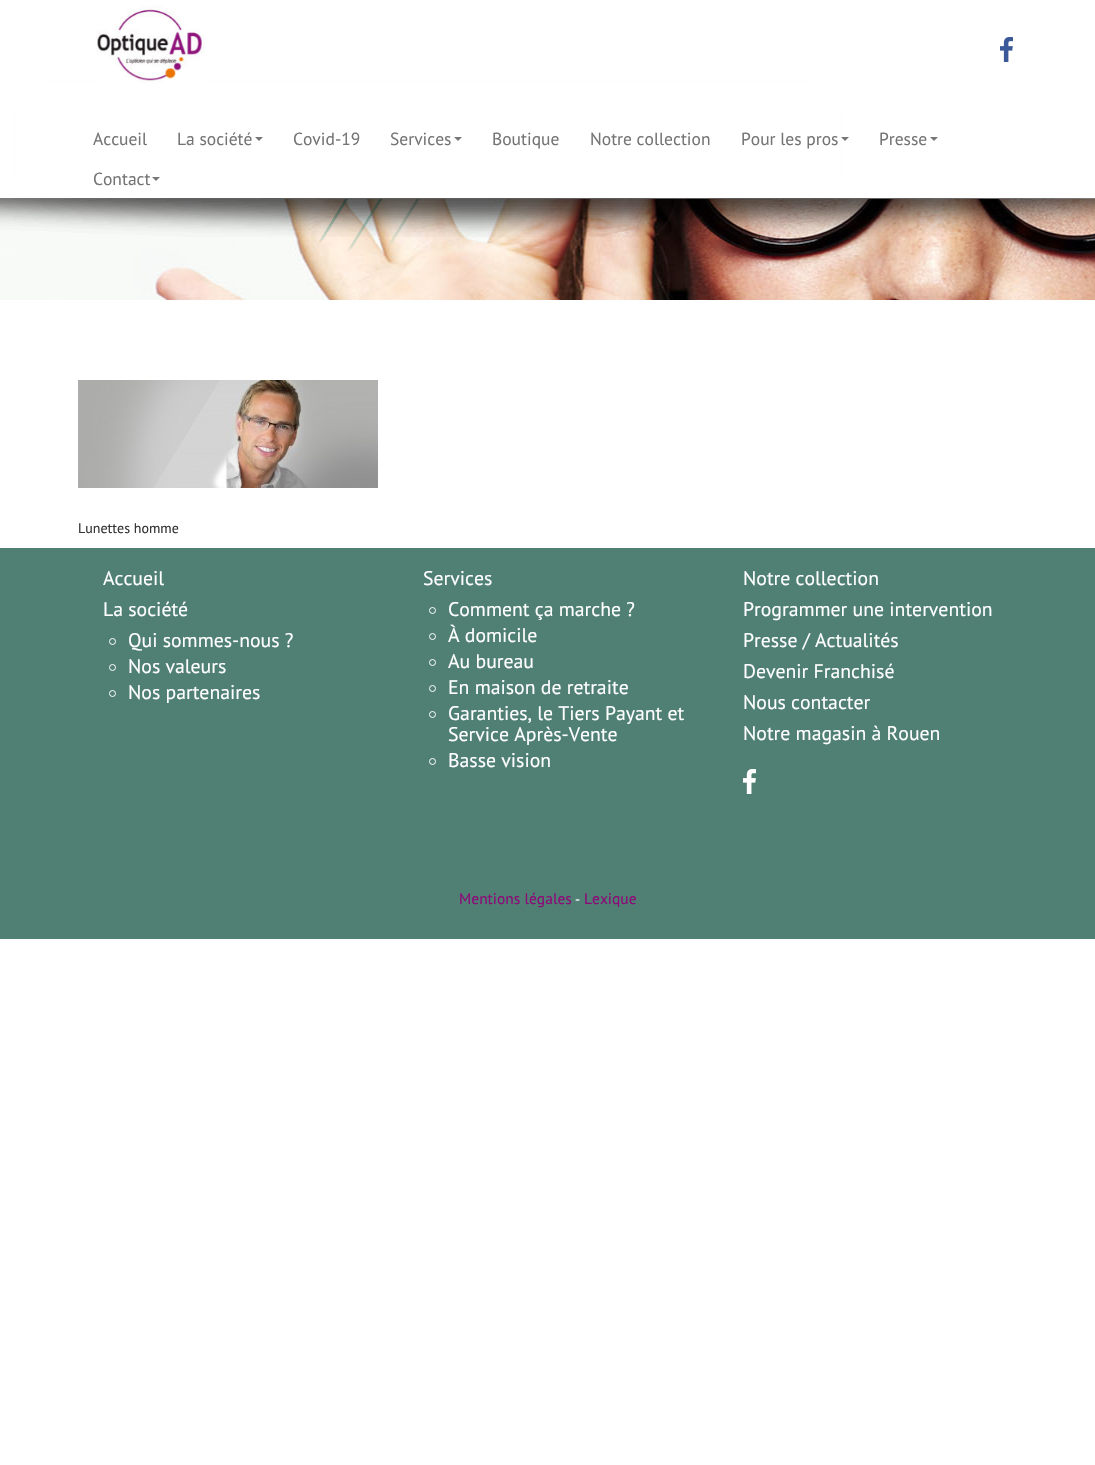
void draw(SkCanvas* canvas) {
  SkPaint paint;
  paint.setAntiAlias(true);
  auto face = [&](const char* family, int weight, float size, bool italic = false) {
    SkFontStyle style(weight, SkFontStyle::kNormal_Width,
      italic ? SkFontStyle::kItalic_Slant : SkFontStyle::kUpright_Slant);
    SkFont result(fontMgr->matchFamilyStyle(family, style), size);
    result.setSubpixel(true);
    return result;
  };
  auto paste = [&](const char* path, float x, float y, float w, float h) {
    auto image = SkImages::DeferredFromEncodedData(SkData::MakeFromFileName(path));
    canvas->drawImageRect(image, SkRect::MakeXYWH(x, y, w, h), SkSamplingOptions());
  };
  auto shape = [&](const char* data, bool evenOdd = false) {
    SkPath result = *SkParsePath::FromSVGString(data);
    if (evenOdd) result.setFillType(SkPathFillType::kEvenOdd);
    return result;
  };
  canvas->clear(0xffffffff);
  paste("img/1.png", 0, 199, 1095, 101);
  paste("img/2.png", 318, 199, 102, 53);
  paint.setColor(0xb3000000);
  paint.setMaskFilter(SkMaskFilter::MakeBlur(kNormal_SkBlurStyle, 13));
  canvas->drawRect(SkRect::MakeXYWH(43, 110, 768, 69), paint);
  paint.setMaskFilter(nullptr);
  paint.setColor(0xffffffff);
  canvas->drawRect(SkRect::MakeXYWH(15, 82, 824, 117), paint);
  paste("img/3.png", 96, 5, 109, 78);
  paste("img/4.png", 1000, 37, 13, 25);
  paint.setColor(0xff777777);
  canvas->drawPath(shape("M255 137H263L259 141Z"), paint);
  canvas->drawPath(shape("M454 137H462L458 141Z"), paint);
  canvas->drawPath(shape("M841 137H849L845 141Z"), paint);
  canvas->drawPath(shape("M930 137H938L934 141Z"), paint);
  canvas->drawPath(shape("M152 177H160L156 181Z"), paint);
  paste("img/5.png", 0, 198, 1095, 39);
  paste("img/6.png", 78, 380, 300, 108);
  paint.setColor(0xff4f8073);
  canvas->drawRect(SkRect::MakeXYWH(0, 548, 1095, 391), paint);
  paint.setStroke(true);
  paint.setStrokeWidth(1);
  paint.setColor(0xffffffff);
  canvas->drawCircle(112.5f, 641.5f, 3, paint);
  canvas->drawCircle(112.5f, 667.5f, 3, paint);
  canvas->drawCircle(112.5f, 693.5f, 3, paint);
  canvas->drawCircle(432.5f, 610.5f, 3, paint);
  canvas->drawCircle(432.5f, 636.5f, 3, paint);
  canvas->drawCircle(432.5f, 662.5f, 3, paint);
  canvas->drawCircle(432.5f, 688.5f, 3, paint);
  canvas->drawCircle(432.5f, 714.5f, 3, paint);
  canvas->drawCircle(432.5f, 761.5f, 3, paint);
  paste("img/7.png", 743, 769, 13, 25);
  auto f0 = face("PT Sans", 400, 17.5f);
  paint.setStroke(false);
  paint.setColor(0xff747474);
  {
    const struct { const char* s; float x, y; } items[] = {
      {"Accueil", 93, 145},
      {"La société", 177, 145},
      {"Covid-19", 293, 145},
      {"Services", 390, 145},
      {"Boutique", 492, 145},
      {"Notre collection", 590, 145},
      {"Pour les pros", 741, 145},
      {"Presse", 879, 145},
      {"Contact", 93, 185},
    };
    for (auto [s, x, y] : items) {
      canvas->drawString(s, x, y, f0, paint);
    }
  }
  auto f1 = face("PT Sans", 400, 14);
  paint.setColor(0xff333333);
  canvas->drawString("Lunettes homme", 78, 533, f1, paint);
  auto f2 = face("PT Sans", 400, 19.75f);
  paint.setColor(0xffffffff);
  {
    const struct { const char* s; float x, y; } items[] = {
      {"Accueil", 103, 585},
      {"La société", 103, 616},
      {"Qui sommes-nous ?", 128, 647},
      {"Nos valeurs", 128, 673},
      {"Nos partenaires", 128, 699},
      {"Services", 423, 585},
      {"Comment ça marche ?", 448, 616},
      {"À domicile", 448, 642},
      {"Au bureau", 448, 668},
      {"En maison de retraite", 448, 694},
      {"Garanties, le Tiers Payant et", 448, 720},
      {"Service Après-Vente", 448, 741},
      {"Basse vision", 448, 767},
      {"Notre collection", 743, 585},
      {"Programmer une intervention", 743, 616},
      {"Presse / Actualités", 743, 647},
      {"Devenir Franchisé", 743, 678},
      {"Nous contacter", 743, 709},
      {"Notre magasin à Rouen", 743, 740},
    };
    for (auto [s, x, y] : items) {
      canvas->drawString(s, x, y, f2, paint);
    }
  }
  auto f3 = face("PT Sans", 400, 15.5f);
  paint.setColor(0xff8d0878);
  canvas->drawString("Mentions légales", 459, 904, f3, paint);
  paint.setColor(0xffffffff);
  canvas->drawString("-", 575, 904, f1, paint);
  paint.setColor(0xff8d0878);
  canvas->drawString("Lexique", 584, 904, f3, paint);
}
